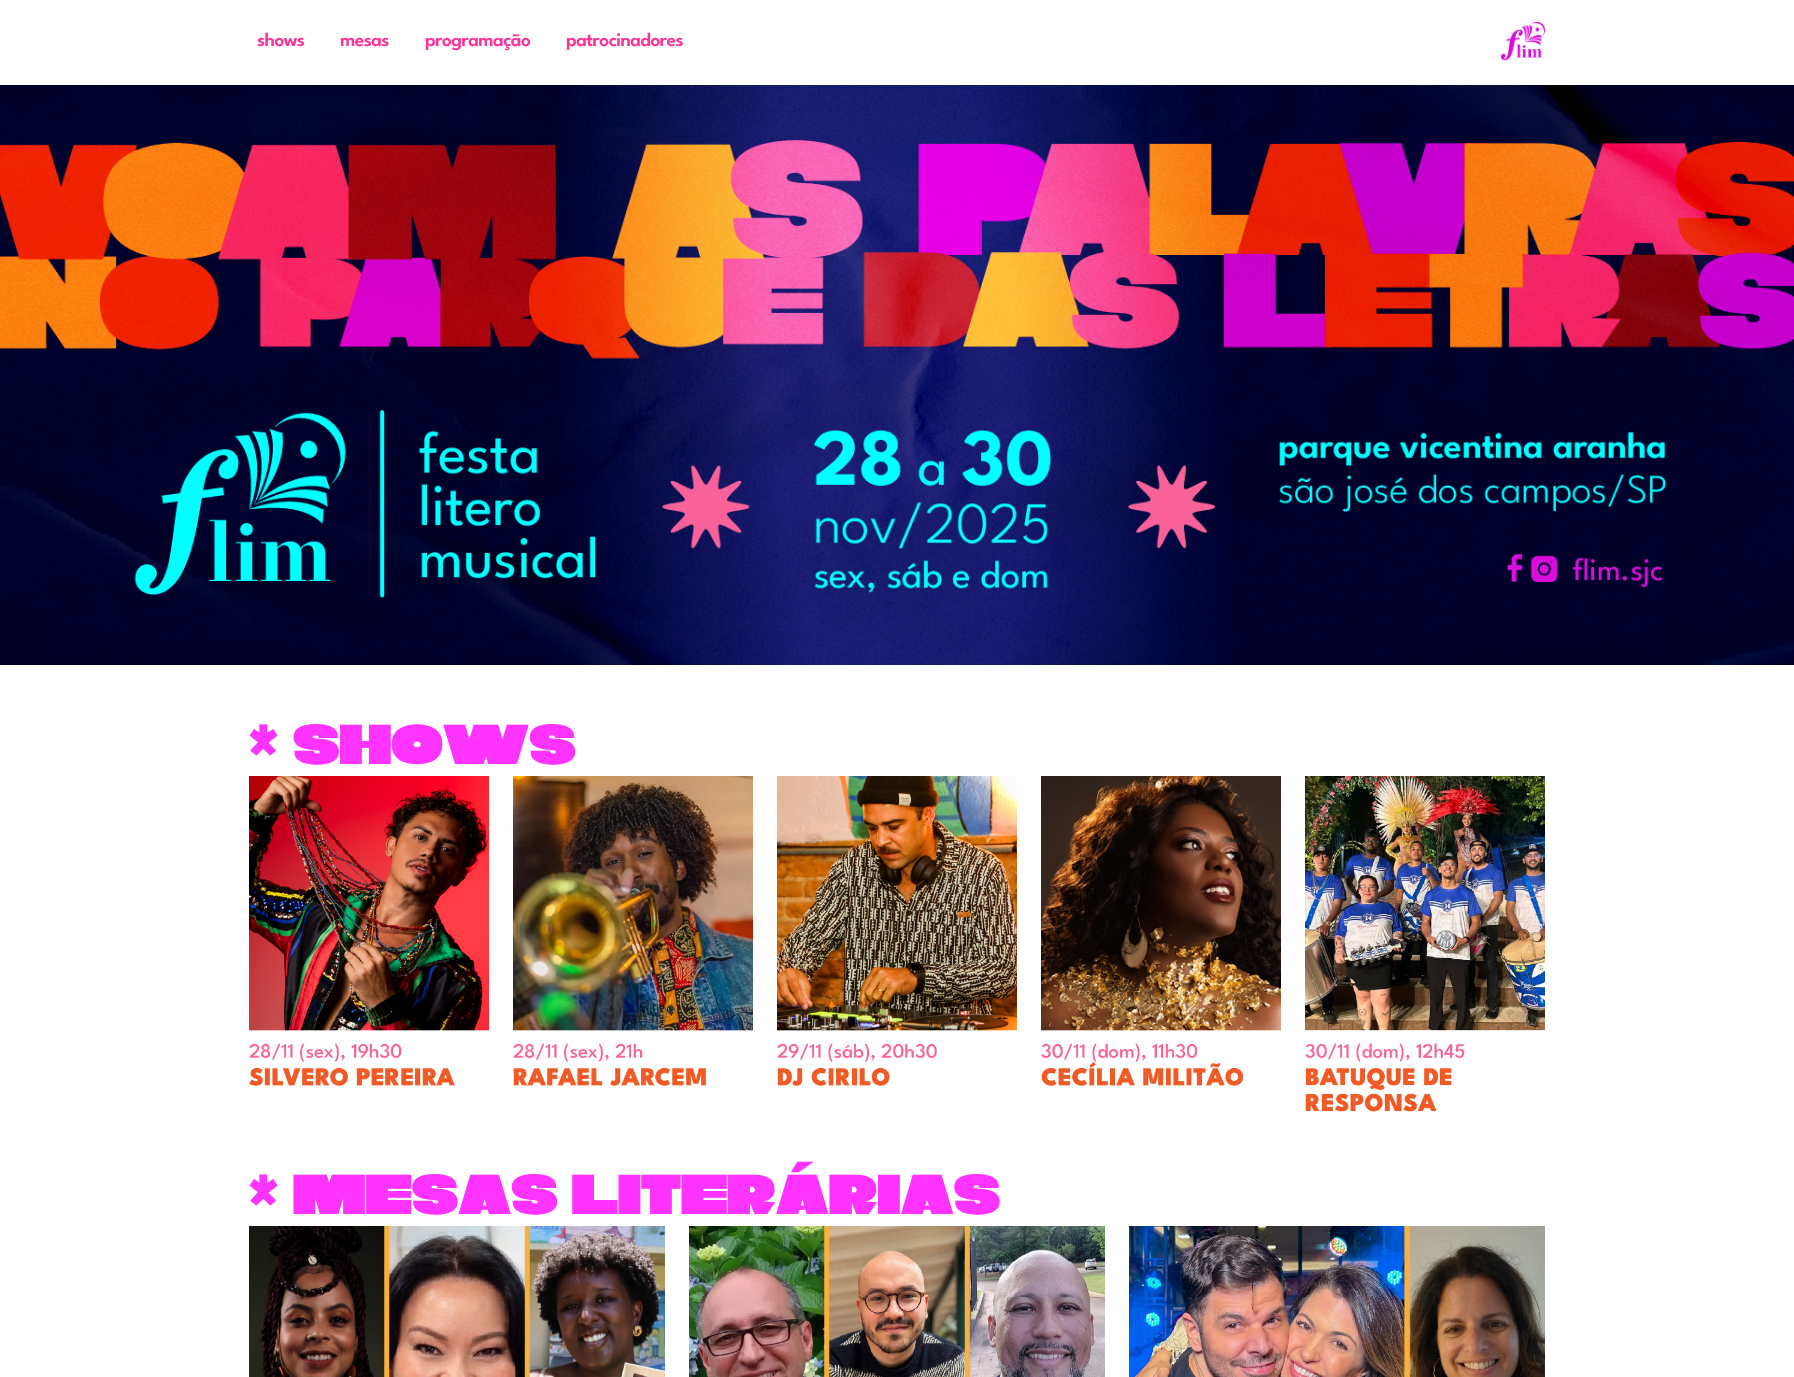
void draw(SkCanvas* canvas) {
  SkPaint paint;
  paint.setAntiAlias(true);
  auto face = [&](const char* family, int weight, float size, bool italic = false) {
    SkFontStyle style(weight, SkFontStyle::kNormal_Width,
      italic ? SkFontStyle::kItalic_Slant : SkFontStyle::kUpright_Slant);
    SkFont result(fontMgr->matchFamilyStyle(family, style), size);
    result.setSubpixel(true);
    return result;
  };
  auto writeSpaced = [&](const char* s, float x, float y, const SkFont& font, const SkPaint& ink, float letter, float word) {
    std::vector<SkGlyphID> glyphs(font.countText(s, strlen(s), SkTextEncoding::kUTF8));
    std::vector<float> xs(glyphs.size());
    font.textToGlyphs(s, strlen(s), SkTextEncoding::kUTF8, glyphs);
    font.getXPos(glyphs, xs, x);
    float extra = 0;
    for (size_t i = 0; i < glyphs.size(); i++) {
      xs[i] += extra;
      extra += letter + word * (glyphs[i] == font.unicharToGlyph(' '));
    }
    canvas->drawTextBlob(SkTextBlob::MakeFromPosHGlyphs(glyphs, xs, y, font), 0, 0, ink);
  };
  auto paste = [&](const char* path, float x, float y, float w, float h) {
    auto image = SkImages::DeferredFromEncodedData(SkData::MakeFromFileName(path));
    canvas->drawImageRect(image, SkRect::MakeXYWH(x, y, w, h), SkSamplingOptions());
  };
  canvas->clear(0xffffffff);
  paste("img/1.png", 1501, 22, 44, 39);
  paste("img/2.png", 0, 85, 1794, 580);
  paste("img/3.png", 249, 776, 240, 310);
  paste("img/4.png", 513, 776, 240, 310);
  paste("img/5.png", 777, 776, 240, 310);
  paste("img/6.png", 1041, 776, 240, 310);
  paste("img/7.png", 1305, 776, 240, 336);
  paste("img/8.png", 249, 1226, 416, 151);
  paste("img/9.png", 689, 1226, 416, 151);
  paste("img/10.png", 1129, 1226, 416, 151);
  auto f0 = face("League Spartan", 600, 19.25f);
  paint.setColor(0xffff3399);
  {
    const struct { const char* s; float x, y; } items[] = {
      {"shows", 257, 46},
      {"mesas", 340, 46},
      {"programação", 425, 46},
      {"patrocinadores", 566, 46},
    };
    for (auto [s, x, y] : items) {
      writeSpaced(s, x, y, f0, paint, -0.5f, 0);
    }
  }
  auto f1 = face("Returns", 400, 56);
  paint.setColor(0xffff33ff);
  {
    const struct { const char* s; float x, y; } items[] = {
      {"*", 249, 766},
      {"SHOWS", 293, 764},
      {"*", 249, 1216},
      {"MESAS LITERÁRIAS", 293, 1214},
    };
    for (auto [s, x, y] : items) {
      canvas->drawString(s, x, y, f1, paint);
    }
  }
}
